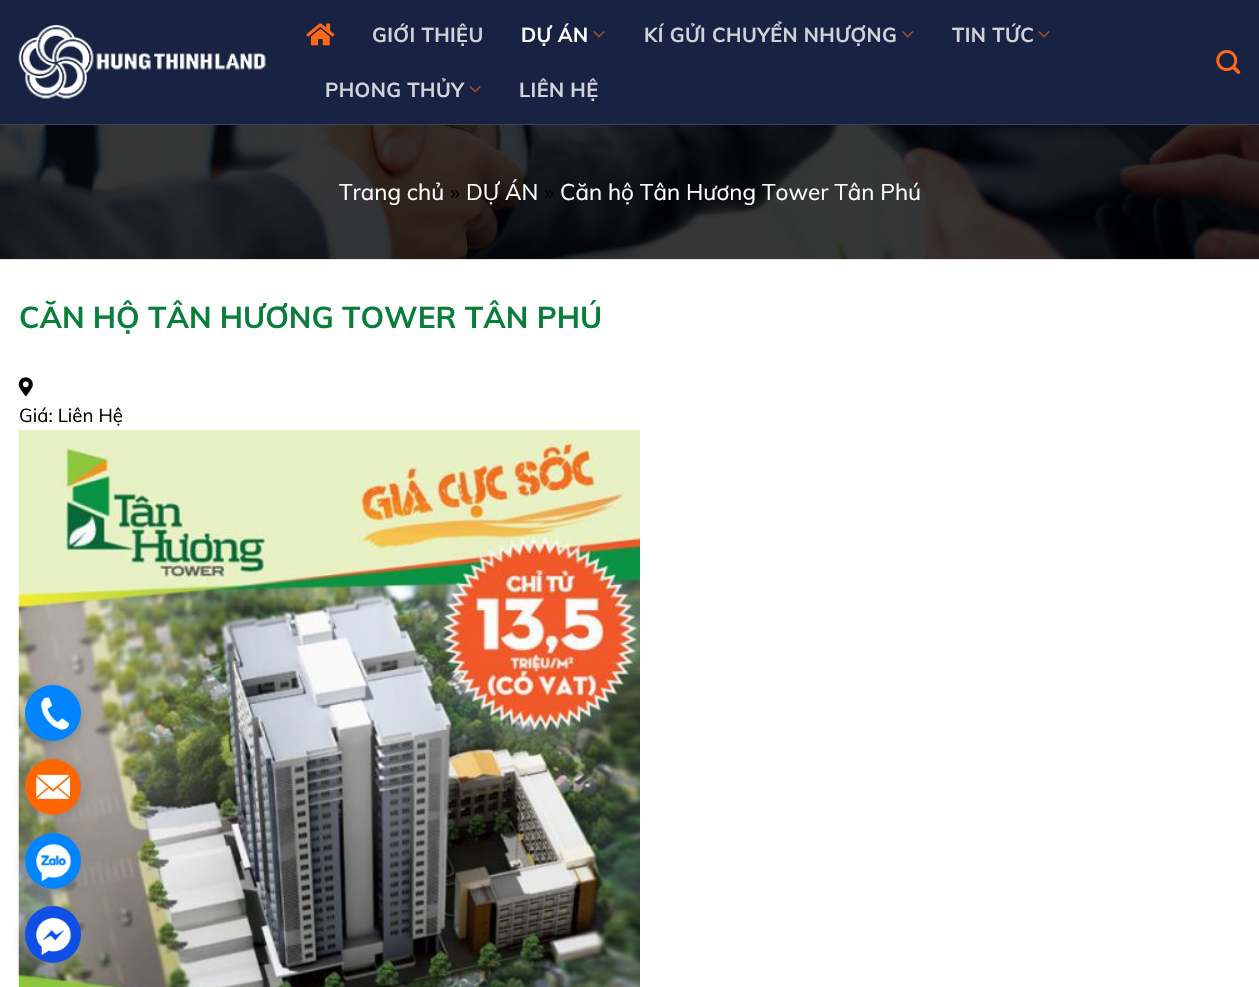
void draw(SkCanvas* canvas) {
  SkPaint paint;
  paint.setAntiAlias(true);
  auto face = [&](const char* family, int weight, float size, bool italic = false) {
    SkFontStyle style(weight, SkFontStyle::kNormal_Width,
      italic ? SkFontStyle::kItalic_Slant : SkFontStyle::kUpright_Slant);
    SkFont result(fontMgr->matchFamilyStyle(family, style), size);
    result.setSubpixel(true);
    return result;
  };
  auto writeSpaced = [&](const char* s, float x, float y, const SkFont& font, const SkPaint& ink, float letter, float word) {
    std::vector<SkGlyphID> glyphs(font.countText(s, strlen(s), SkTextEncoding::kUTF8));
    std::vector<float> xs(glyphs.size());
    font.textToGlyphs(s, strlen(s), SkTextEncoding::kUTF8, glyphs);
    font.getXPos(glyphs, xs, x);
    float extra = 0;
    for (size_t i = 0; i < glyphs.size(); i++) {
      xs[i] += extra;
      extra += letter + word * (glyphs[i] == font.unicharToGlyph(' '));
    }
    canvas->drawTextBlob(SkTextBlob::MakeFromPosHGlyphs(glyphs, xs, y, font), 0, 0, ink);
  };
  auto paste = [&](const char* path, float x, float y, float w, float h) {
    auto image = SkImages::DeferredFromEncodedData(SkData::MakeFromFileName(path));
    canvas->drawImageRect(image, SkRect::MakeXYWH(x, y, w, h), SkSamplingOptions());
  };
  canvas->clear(0xffffffff);
  paint.setColor(0xff182243);
  canvas->drawRect(SkRect::MakeXYWH(0, 0, 1259, 124), paint);
  paint.setColor(0xff3b435f);
  canvas->drawRect(SkRect::MakeXYWH(0, 124, 1259, 1), paint);
  paste("img/1.png", 18, 25, 248, 74);
  paste("img/2.png", 306, 23, 29, 23);
  paste("img/3.png", 593, 31, 12, 7);
  paste("img/4.png", 902, 31, 12, 7);
  paste("img/3.png", 1038, 31, 12, 7);
  paste("img/5.png", 469, 86, 12, 7);
  paste("img/6.png", 1216, 50, 25, 24);
  paste("img/7.png", 0, 125, 1259, 134);
  paint.setColor(0xffe1e1e1);
  canvas->drawRect(SkRect::MakeXYWH(0, 259, 1259, 1), paint);
  paste("img/8.png", 18, 377, 15, 20);
  paste("img/9.png", 18, 430, 622, 557);
  paint.setColor(0xff888888);
  paint.setMaskFilter(SkMaskFilter::MakeBlur(kNormal_SkBlurStyle, 6));
  canvas->drawRoundRect(SkRect::MakeXYWH(25, 689, 56, 56), 28, 28, paint);
  paint.setMaskFilter(nullptr);
  paint.setColor(0xff0084ff);
  canvas->drawCircle(53, 713, 28, paint);
  paste("img/10.png", 41, 697, 28, 33);
  paint.setColor(0xff888888);
  paint.setMaskFilter(SkMaskFilter::MakeBlur(kNormal_SkBlurStyle, 6));
  canvas->drawRoundRect(SkRect::MakeXYWH(25, 763, 56, 56), 28, 28, paint);
  paint.setMaskFilter(nullptr);
  paint.setColor(0xffff6600);
  canvas->drawCircle(53, 787, 28, paint);
  paste("img/11.png", 36, 774, 34, 25);
  paint.setColor(0xff888888);
  paint.setMaskFilter(SkMaskFilter::MakeBlur(kNormal_SkBlurStyle, 6));
  canvas->drawRoundRect(SkRect::MakeXYWH(25, 836, 56, 57), 28, 28, paint);
  paint.setMaskFilter(nullptr);
  paint.setColor(0xff0084ff);
  canvas->drawCircle(53, 861, 28, paint);
  paste("img/12.png", 36, 843, 36, 39);
  paint.setColor(0xff888888);
  paint.setMaskFilter(SkMaskFilter::MakeBlur(kNormal_SkBlurStyle, 6));
  canvas->drawRoundRect(SkRect::MakeXYWH(25, 910, 56, 56), 28, 28, paint);
  paint.setMaskFilter(nullptr);
  paint.setColor(0xff0f4fe6);
  canvas->drawRoundRect(SkRect::MakeXYWH(25, 906, 56, 57), 28, 28, paint);
  paste("img/13.png", 36, 917, 36, 38);
  auto f0 = face("Muli", 700, 20);
  paint.setColor(0xffd1d3d9);
  writeSpaced("GIỚI THIỆU", 372, 42, f0, paint, 0.4f, 0);
  paint.setColor(0xffffffff);
  writeSpaced("DỰ ÁN", 521, 42, f0, paint, 0.4f, 0);
  paint.setColor(0xffd1d3d9);
  {
    const struct { const char* s; float x, y; } items[] = {
      {"KÍ GỬI CHUYỂN NHƯỢNG", 644, 42},
      {"TIN TỨC", 952, 42},
      {"PHONG THỦY", 325, 97},
      {"LIÊN HỆ", 519, 97},
    };
    for (auto [s, x, y] : items) {
      writeSpaced(s, x, y, f0, paint, 0.4f, 0);
    }
  }
  auto f1 = face("Muli", 400, 22.5f);
  paint.setColor(0xffffffff);
  canvas->drawString("Trang chủ", 339, 200, f1, paint);
  paint.setColor(0xff000000);
  canvas->drawString("»", 450, 200, f1, paint);
  paint.setColor(0xffffffff);
  canvas->drawString("DỰ ÁN", 466, 200, f1, paint);
  paint.setColor(0xff000000);
  canvas->drawString("»", 544, 200, f1, paint);
  paint.setColor(0xffffffff);
  canvas->drawString("Căn hộ Tân Hương Tower Tân Phú", 560, 200, f1, paint);
  auto f2 = face("Muli", 700, 30);
  paint.setColor(0xff097e3a);
  canvas->drawString("CĂN HỘ TÂN HƯƠNG TOWER TÂN PHÚ", 19, 328, f2, paint);
  auto f3 = face("Muli", 400, 18.75f);
  paint.setColor(0xff000000);
  canvas->drawString("Giá: Liên Hệ", 19, 422, f3, paint);
}
